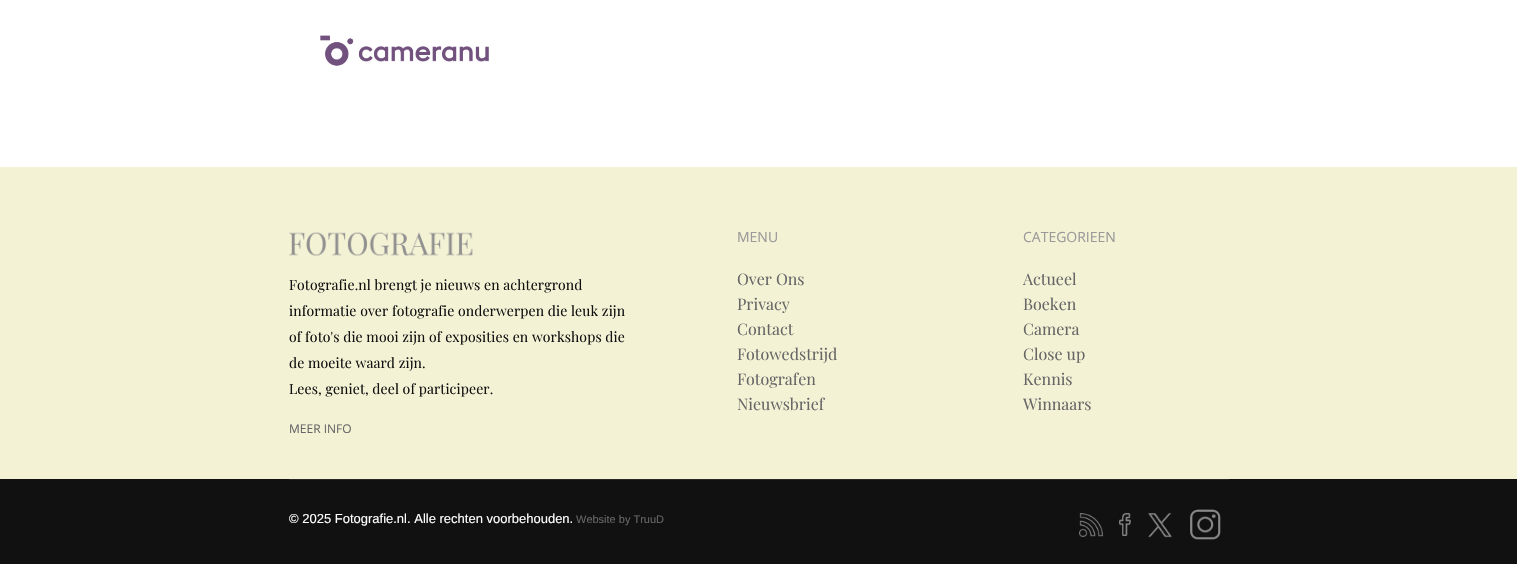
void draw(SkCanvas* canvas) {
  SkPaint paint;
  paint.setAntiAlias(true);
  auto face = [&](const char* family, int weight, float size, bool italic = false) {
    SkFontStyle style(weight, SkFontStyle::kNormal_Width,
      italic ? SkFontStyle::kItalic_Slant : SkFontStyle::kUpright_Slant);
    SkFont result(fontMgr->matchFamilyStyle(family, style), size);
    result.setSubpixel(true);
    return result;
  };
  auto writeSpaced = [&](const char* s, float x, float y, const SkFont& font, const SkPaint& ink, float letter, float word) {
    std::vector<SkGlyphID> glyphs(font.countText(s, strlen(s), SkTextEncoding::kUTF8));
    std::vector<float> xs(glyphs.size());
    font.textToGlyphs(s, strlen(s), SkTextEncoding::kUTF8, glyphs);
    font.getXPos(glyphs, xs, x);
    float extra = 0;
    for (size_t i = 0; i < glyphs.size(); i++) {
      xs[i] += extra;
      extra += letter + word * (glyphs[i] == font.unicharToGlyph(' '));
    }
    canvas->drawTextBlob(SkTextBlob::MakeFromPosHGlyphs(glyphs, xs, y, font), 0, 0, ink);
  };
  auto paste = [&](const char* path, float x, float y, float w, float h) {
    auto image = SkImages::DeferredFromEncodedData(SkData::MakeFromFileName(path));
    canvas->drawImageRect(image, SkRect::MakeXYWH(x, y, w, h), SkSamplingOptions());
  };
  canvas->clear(0xffffffff);
  paste("img/1.png", 320, 35, 169, 31);
  paint.setColor(0xfff4f2d5);
  canvas->drawRect(SkRect::MakeXYWH(0, 167, 1517, 312), paint);
  paste("img/2.png", 289, 232, 184, 24);
  paint.setColor(0xff111111);
  canvas->drawRect(SkRect::MakeXYWH(0, 479, 1517, 85), paint);
  paint.setColor(0xff272727);
  canvas->drawRect(SkRect::MakeXYWH(289, 479, 940, 1), paint);
  paste("img/3.png", 1079, 513, 24, 24);
  paste("img/4.png", 1119, 513, 12, 23);
  paste("img/5.png", 1148, 513, 24, 25);
  paste("img/6.png", 1190, 509, 31, 31);
  auto f0 = face("Playfair Display", 400, 14);
  paint.setColor(0xff111111);
  {
    const struct { const char* s; float x, y; } items[] = {
      {"Fotografie.nl brengt je nieuws en achtergrond", 289, 290},
      {"informatie over fotografie onderwerpen die leuk zijn", 289, 316},
      {"of foto's die mooi zijn of exposities en workshops die", 289, 342},
      {"de moeite waard zijn.", 289, 368},
      {"Lees, geniet, deel of participeer.", 289, 394},
    };
    for (auto [s, x, y] : items) {
      writeSpaced(s, x, y, f0, paint, 0.1f, 0);
    }
  }
  auto f1 = face("Open Sans", 400, 12);
  paint.setColor(0xff666666);
  canvas->drawString("MEER INFO", 289, 433, f1, paint);
  auto f2 = face("Open Sans", 400, 14);
  paint.setColor(0xff999999);
  canvas->drawString("MENU", 737, 242, f2, paint);
  auto f3 = face("Playfair Display", 400, 16);
  paint.setColor(0xff666666);
  {
    const struct { const char* s; float x, y; } items[] = {
      {"Over Ons", 737, 285},
      {"Privacy", 737, 310},
      {"Contact", 737, 335},
      {"Fotowedstrijd", 737, 360},
      {"Fotografen", 737, 385},
      {"Nieuwsbrief", 737, 410},
    };
    for (auto [s, x, y] : items) {
      canvas->drawString(s, x, y, f3, paint);
    }
  }
  paint.setColor(0xff999999);
  canvas->drawString("CATEGORIEEN", 1023, 242, f2, paint);
  paint.setColor(0xff666666);
  {
    const struct { const char* s; float x, y; } items[] = {
      {"Actueel", 1023, 285},
      {"Boeken", 1023, 310},
      {"Camera", 1023, 335},
      {"Close up", 1023, 360},
      {"Kennis", 1023, 385},
      {"Winnaars", 1023, 410},
    };
    for (auto [s, x, y] : items) {
      canvas->drawString(s, x, y, f3, paint);
    }
  }
  auto f4 = face("Liberation Sans", 400, 13);
  paint.setColor(0xffffffff);
  canvas->drawString("© 2025 Fotografie.nl. Alle rechten voorbehouden.", 289, 523, f4, paint);
  auto f5 = face("Liberation Sans", 400, 11);
  paint.setColor(0xff666666);
  canvas->drawString("Website by TruuD", 576, 523, f5, paint);
}
